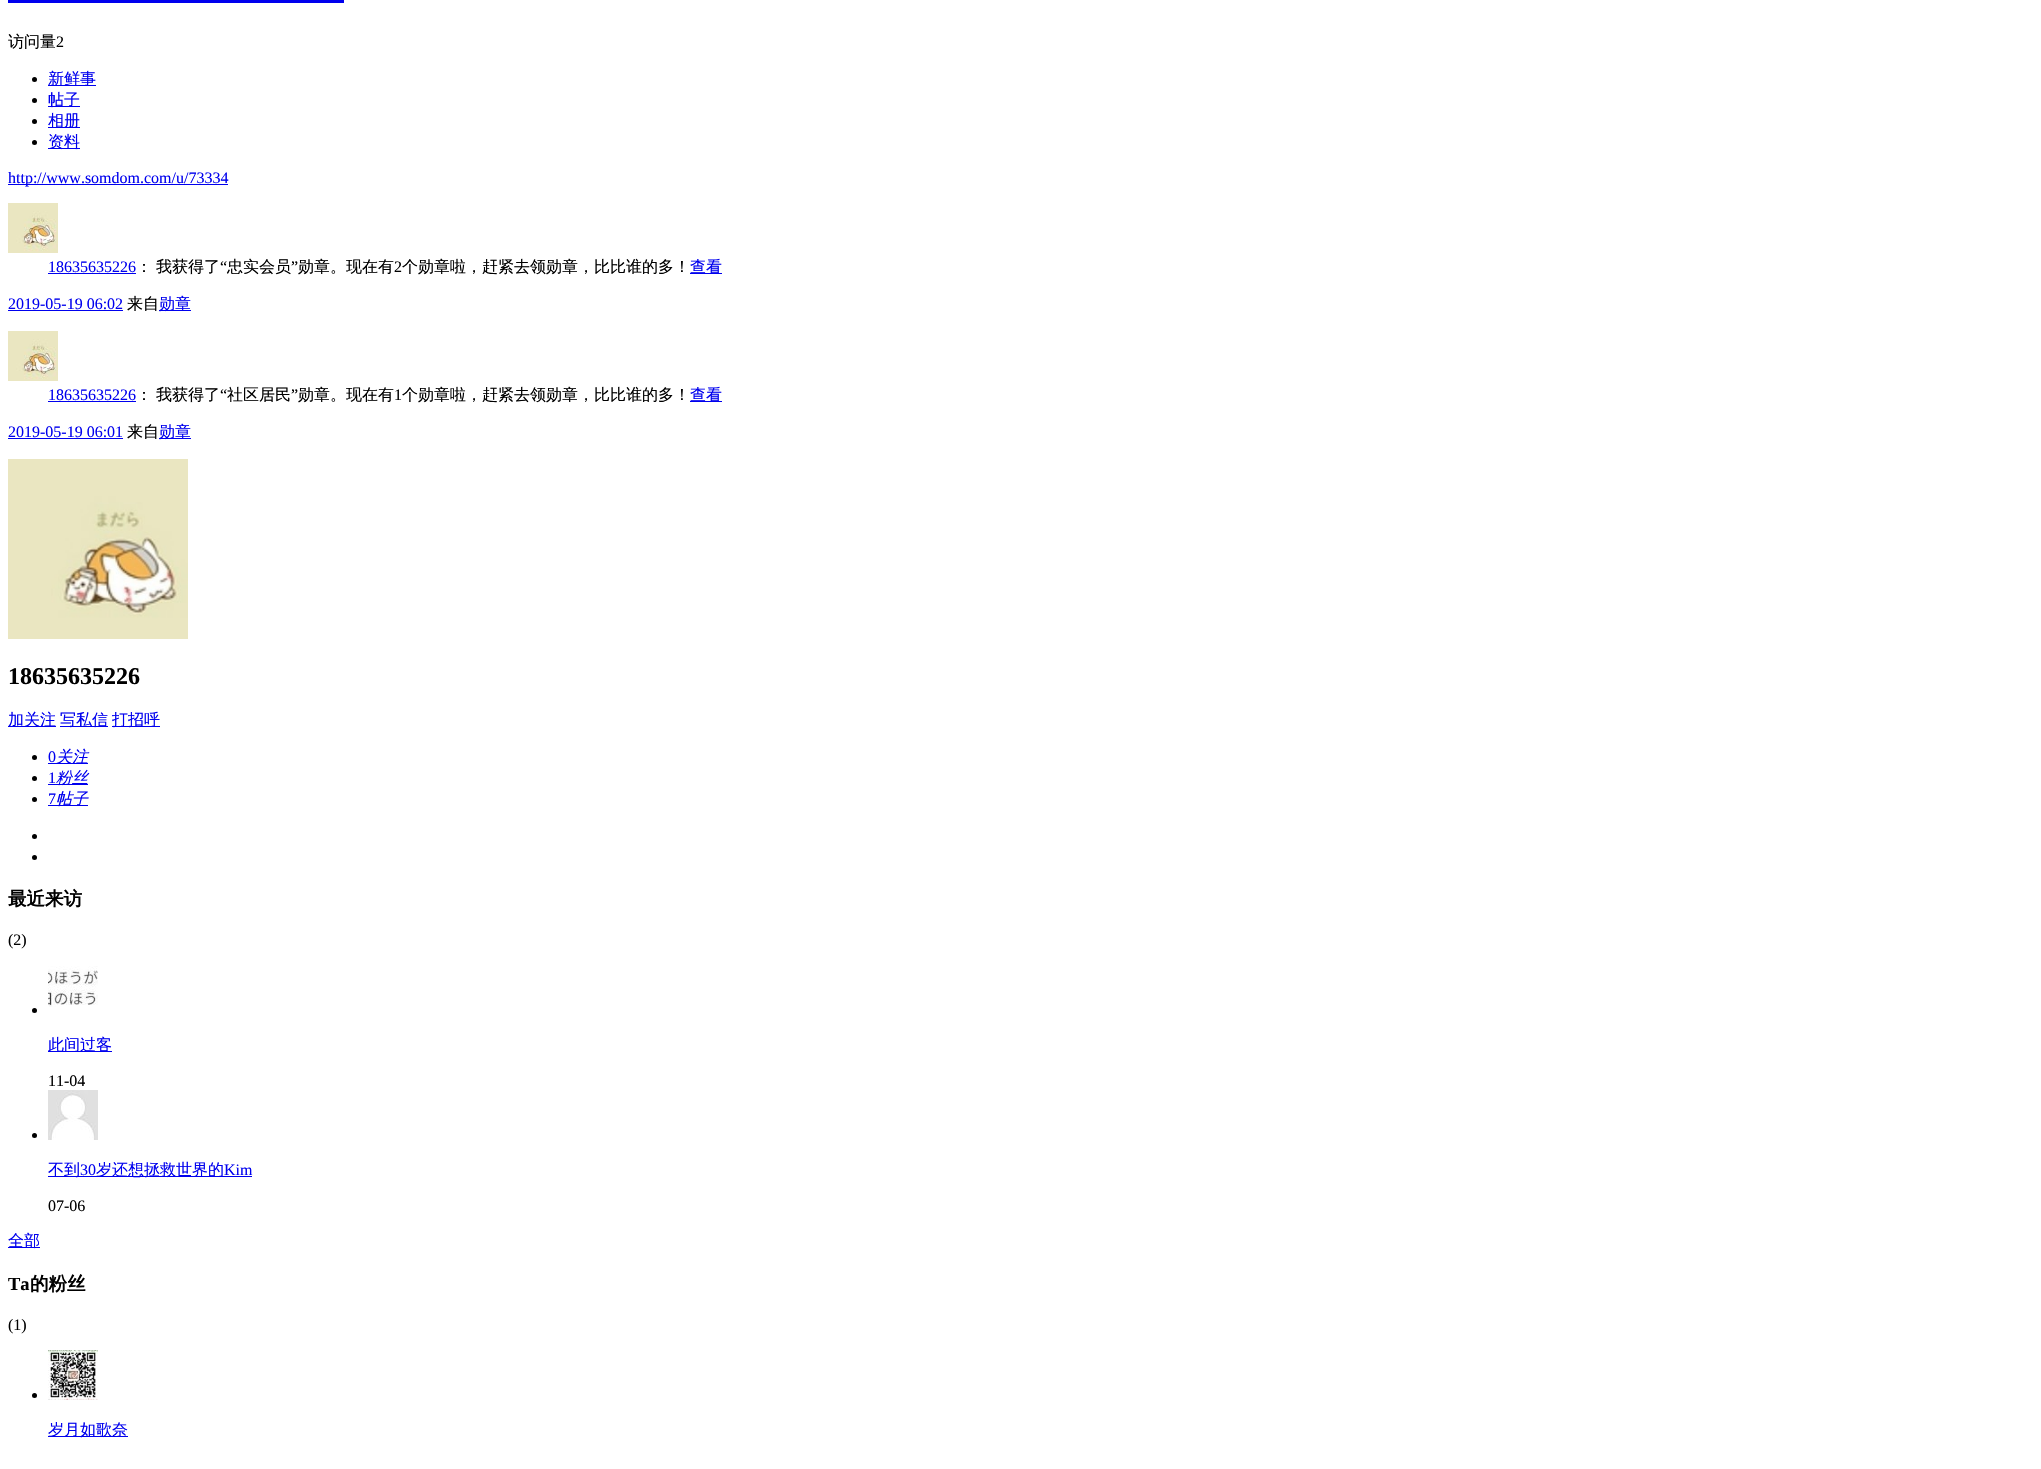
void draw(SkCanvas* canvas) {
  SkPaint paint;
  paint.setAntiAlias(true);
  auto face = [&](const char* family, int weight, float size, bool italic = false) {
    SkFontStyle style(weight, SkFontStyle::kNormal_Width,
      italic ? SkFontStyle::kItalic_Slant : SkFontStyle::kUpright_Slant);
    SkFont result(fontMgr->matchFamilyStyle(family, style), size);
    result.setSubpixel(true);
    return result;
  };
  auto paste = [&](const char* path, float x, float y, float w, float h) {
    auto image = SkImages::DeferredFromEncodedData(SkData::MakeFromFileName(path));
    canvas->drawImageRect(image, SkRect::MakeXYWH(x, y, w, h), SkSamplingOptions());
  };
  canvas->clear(0xffffffff);
  paint.setColor(0xff0000ee);
  canvas->drawRect(SkRect::MakeXYWH(8, 0, 336, 3), paint);
  paint.setColor(0xff000000);
  canvas->drawCircle(34.5f, 79.5f, 2.5f, paint);
  paint.setColor(0xff0000ee);
  canvas->drawRect(SkRect::MakeXYWH(48, 85, 48, 1), paint);
  paint.setColor(0xff000000);
  canvas->drawCircle(34.5f, 100.5f, 2.5f, paint);
  paint.setColor(0xff0000ee);
  canvas->drawRect(SkRect::MakeXYWH(48, 106, 32, 1), paint);
  paint.setColor(0xff000000);
  canvas->drawCircle(34.5f, 121.5f, 2.5f, paint);
  paint.setColor(0xff0000ee);
  canvas->drawRect(SkRect::MakeXYWH(48, 127, 32, 1), paint);
  paint.setColor(0xff000000);
  canvas->drawCircle(34.5f, 142.5f, 2.5f, paint);
  paint.setColor(0xff0000ee);
  canvas->drawRect(SkRect::MakeXYWH(48, 148, 32, 1), paint);
  canvas->drawRect(SkRect::MakeXYWH(8, 184, 220, 1), paint);
  paste("img/1.png", 8, 203, 50, 50);
  {
    const struct { float x, y, w, h; SkColor color; } items[] = {
      {48, 273, 88, 1, 0xff0000ee},
      {690, 273, 32, 1, 0xff0000ee},
      {8, 310, 115, 1, 0xff0000ee},
      {159, 310, 32, 1, 0xff0000ee},
    };
    for (auto [x, y, w, h, color] : items) {
      paint.setColor(color);
      canvas->drawRect(SkRect::MakeXYWH(x, y, w, h), paint);
    }
  }
  paste("img/1.png", 8, 331, 50, 50);
  {
    const struct { float x, y, w, h; SkColor color; } items[] = {
      {48, 401, 88, 1, 0xff0000ee},
      {690, 401, 32, 1, 0xff0000ee},
      {8, 438, 115, 1, 0xff0000ee},
      {159, 438, 32, 1, 0xff0000ee},
    };
    for (auto [x, y, w, h, color] : items) {
      paint.setColor(color);
      canvas->drawRect(SkRect::MakeXYWH(x, y, w, h), paint);
    }
  }
  paste("img/2.png", 8, 459, 180, 180);
  {
    const struct { float x, y, w, h; SkColor color; } items[] = {
      {8, 726, 48, 1, 0xff0000ee},
      {60, 726, 48, 1, 0xff0000ee},
      {112, 726, 48, 1, 0xff0000ee},
    };
    for (auto [x, y, w, h, color] : items) {
      paint.setColor(color);
      canvas->drawRect(SkRect::MakeXYWH(x, y, w, h), paint);
    }
  }
  paint.setColor(0xff000000);
  canvas->drawCircle(34.5f, 757.5f, 2.5f, paint);
  paint.setColor(0xff0000ee);
  canvas->drawRect(SkRect::MakeXYWH(48, 763, 40, 1), paint);
  paint.setColor(0xff000000);
  canvas->drawCircle(34.5f, 778.5f, 2.5f, paint);
  paint.setColor(0xff0000ee);
  canvas->drawRect(SkRect::MakeXYWH(48, 784, 40, 1), paint);
  paint.setColor(0xff000000);
  canvas->drawCircle(34.5f, 799.5f, 2.5f, paint);
  paint.setColor(0xff0000ee);
  canvas->drawRect(SkRect::MakeXYWH(48, 805, 40, 1), paint);
  paint.setColor(0xff000000);
  canvas->drawCircle(34.5f, 836.5f, 2.5f, paint);
  canvas->drawCircle(34.5f, 857.5f, 2.5f, paint);
  canvas->drawCircle(34.5f, 1010.5f, 2.5f, paint);
  paste("img/3.png", 48, 966, 50, 41);
  paint.setColor(0xff0000ee);
  canvas->drawRect(SkRect::MakeXYWH(48, 1051, 64, 1), paint);
  paint.setColor(0xff000000);
  canvas->drawCircle(34.5f, 1135.5f, 2.5f, paint);
  paste("img/4.png", 48, 1090, 50, 50);
  paint.setColor(0xff0000ee);
  canvas->drawRect(SkRect::MakeXYWH(48, 1176, 204, 1), paint);
  canvas->drawRect(SkRect::MakeXYWH(8, 1247, 32, 1), paint);
  paint.setColor(0xff000000);
  canvas->drawCircle(34.5f, 1395.5f, 2.5f, paint);
  paste("img/5.png", 48, 1350, 50, 50);
  paint.setColor(0xff0000ee);
  canvas->drawRect(SkRect::MakeXYWH(48, 1436, 80, 1), paint);
  auto f0 = face("WenQuanYi Zen Hei", 500, 16);
  paint.setColor(0xff000000);
  canvas->drawString("访问量", 8, 47, f0, paint);
  auto f1 = face("Liberation Serif", 400, 16);
  canvas->drawString("2", 56, 47, f1, paint);
  paint.setColor(0xff0000ee);
  {
    const struct { const char* s; float x, y; } items[] = {
      {"新鲜事", 48, 84},
      {"帖子", 48, 105},
      {"相册", 48, 126},
      {"资料", 48, 147},
    };
    for (auto [s, x, y] : items) {
      canvas->drawString(s, x, y, f0, paint);
    }
  }
  canvas->drawString("http://www.somdom.com/u/73334", 8, 183, f1, paint);
  canvas->drawString("18635635226", 48, 272, f1, paint);
  paint.setColor(0xff000000);
  canvas->drawString("：", 136, 272, f0, paint);
  canvas->drawString("我获得了", 156, 272, f0, paint);
  canvas->drawString("“", 220, 272, f1, paint);
  canvas->drawString("忠实会员", 227, 272, f0, paint);
  canvas->drawString("”", 291, 272, f1, paint);
  canvas->drawString("勋章。现在有", 298, 272, f0, paint);
  canvas->drawString("2", 394, 272, f1, paint);
  canvas->drawString("个勋章啦，赶紧去领勋章，比比谁的多！", 402, 272, f0, paint);
  paint.setColor(0xff0000ee);
  canvas->drawString("查看", 690, 272, f0, paint);
  canvas->drawString("2019-05-19 06:02", 8, 309, f1, paint);
  paint.setColor(0xff000000);
  canvas->drawString("来自", 127, 309, f0, paint);
  paint.setColor(0xff0000ee);
  canvas->drawString("勋章", 159, 309, f0, paint);
  canvas->drawString("18635635226", 48, 400, f1, paint);
  paint.setColor(0xff000000);
  canvas->drawString("：", 136, 400, f0, paint);
  canvas->drawString("我获得了", 156, 400, f0, paint);
  canvas->drawString("“", 220, 400, f1, paint);
  canvas->drawString("社区居民", 227, 400, f0, paint);
  canvas->drawString("”", 291, 400, f1, paint);
  canvas->drawString("勋章。现在有", 298, 400, f0, paint);
  canvas->drawString("1", 394, 400, f1, paint);
  canvas->drawString("个勋章啦，赶紧去领勋章，比比谁的多！", 402, 400, f0, paint);
  paint.setColor(0xff0000ee);
  canvas->drawString("查看", 690, 400, f0, paint);
  canvas->drawString("2019-05-19 06:01", 8, 437, f1, paint);
  paint.setColor(0xff000000);
  canvas->drawString("来自", 127, 437, f0, paint);
  paint.setColor(0xff0000ee);
  canvas->drawString("勋章", 159, 437, f0, paint);
  auto f2 = face("Liberation Serif", 700, 24);
  paint.setColor(0xff000000);
  canvas->drawString("18635635226", 8, 684, f2, paint);
  paint.setColor(0xff0000ee);
  {
    const struct { const char* s; float x, y; } items[] = {
      {"加关注", 8, 725},
      {"写私信", 60, 725},
      {"打招呼", 112, 725},
    };
    for (auto [s, x, y] : items) {
      canvas->drawString(s, x, y, f0, paint);
    }
  }
  canvas->drawString("0", 48, 762, f1, paint);
  auto f3 = face("WenQuanYi Zen Hei", 500, 16, true);
  canvas->drawString("关注", 56, 762, f3, paint);
  canvas->drawString("1", 48, 783, f1, paint);
  canvas->drawString("粉丝", 56, 783, f3, paint);
  canvas->drawString("7", 48, 804, f1, paint);
  canvas->drawString("帖子", 56, 804, f3, paint);
  auto f4 = face("WenQuanYi Zen Hei", 700, 18.5f);
  paint.setColor(0xff000000);
  canvas->drawString("最近来访", 8, 905, f4, paint);
  canvas->drawString("(2)", 8, 945, f1, paint);
  paint.setColor(0xff0000ee);
  canvas->drawString("此间过客", 48, 1050, f0, paint);
  paint.setColor(0xff000000);
  canvas->drawString("11-04", 48, 1086, f1, paint);
  paint.setColor(0xff0000ee);
  canvas->drawString("不到", 48, 1175, f0, paint);
  canvas->drawString("30", 80, 1175, f1, paint);
  canvas->drawString("岁还想拯救世界的", 96, 1175, f0, paint);
  canvas->drawString("Kim", 224, 1175, f1, paint);
  paint.setColor(0xff000000);
  canvas->drawString("07-06", 48, 1211, f1, paint);
  paint.setColor(0xff0000ee);
  canvas->drawString("全部", 8, 1246, f0, paint);
  auto f5 = face("Liberation Serif", 700, 18.5f);
  paint.setColor(0xff000000);
  canvas->drawString("Ta", 8, 1290, f5, paint);
  canvas->drawString("的粉丝", 30, 1290, f4, paint);
  canvas->drawString("(1)", 8, 1330, f1, paint);
  paint.setColor(0xff0000ee);
  canvas->drawString("岁月如歌奈", 48, 1435, f0, paint);
}
